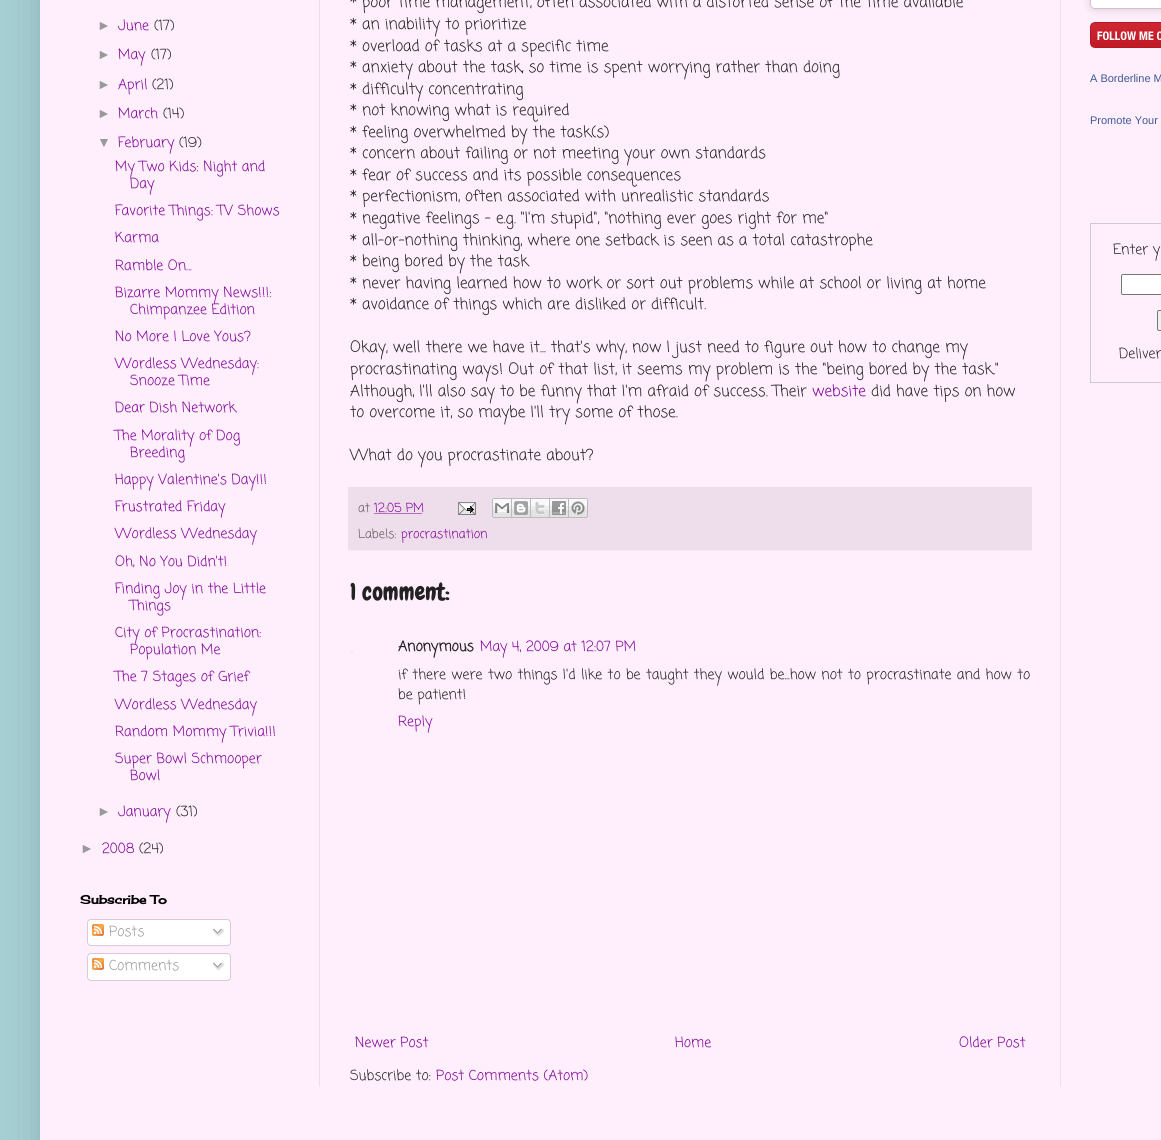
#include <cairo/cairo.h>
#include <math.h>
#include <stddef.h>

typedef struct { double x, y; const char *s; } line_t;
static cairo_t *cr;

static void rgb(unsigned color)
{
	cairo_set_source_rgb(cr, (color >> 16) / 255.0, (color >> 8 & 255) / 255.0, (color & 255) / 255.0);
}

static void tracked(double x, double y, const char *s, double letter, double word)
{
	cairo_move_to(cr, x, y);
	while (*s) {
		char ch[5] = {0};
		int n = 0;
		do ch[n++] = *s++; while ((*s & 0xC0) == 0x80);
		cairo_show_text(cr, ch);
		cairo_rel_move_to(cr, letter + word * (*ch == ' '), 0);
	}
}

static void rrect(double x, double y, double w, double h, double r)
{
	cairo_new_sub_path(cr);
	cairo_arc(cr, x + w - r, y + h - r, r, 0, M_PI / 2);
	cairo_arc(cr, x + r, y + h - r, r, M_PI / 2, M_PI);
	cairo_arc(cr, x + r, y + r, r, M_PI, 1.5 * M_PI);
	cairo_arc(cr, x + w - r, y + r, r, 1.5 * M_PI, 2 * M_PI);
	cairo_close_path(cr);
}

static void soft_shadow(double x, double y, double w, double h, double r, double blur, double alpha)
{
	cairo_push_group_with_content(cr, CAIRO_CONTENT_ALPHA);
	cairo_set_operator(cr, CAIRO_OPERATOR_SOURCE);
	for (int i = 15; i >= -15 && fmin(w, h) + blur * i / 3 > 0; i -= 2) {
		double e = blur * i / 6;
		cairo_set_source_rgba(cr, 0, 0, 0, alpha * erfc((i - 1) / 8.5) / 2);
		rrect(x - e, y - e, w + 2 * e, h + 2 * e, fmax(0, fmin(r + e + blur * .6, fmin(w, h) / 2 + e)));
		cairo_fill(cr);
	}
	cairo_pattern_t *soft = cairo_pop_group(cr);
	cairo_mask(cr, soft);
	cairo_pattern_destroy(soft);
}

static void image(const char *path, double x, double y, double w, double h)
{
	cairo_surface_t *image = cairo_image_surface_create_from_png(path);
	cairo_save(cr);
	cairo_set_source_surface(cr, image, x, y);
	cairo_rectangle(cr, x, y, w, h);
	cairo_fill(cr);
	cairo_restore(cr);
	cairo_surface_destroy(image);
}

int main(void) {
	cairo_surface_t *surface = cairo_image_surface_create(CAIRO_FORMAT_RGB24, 1161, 1140);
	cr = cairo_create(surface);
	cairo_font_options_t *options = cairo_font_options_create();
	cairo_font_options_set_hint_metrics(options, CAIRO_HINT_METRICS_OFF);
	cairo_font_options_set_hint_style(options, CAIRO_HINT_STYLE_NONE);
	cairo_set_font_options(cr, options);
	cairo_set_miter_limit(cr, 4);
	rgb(0xa6cfd4);
	cairo_paint(cr);
	rgb(0x000000);
	soft_shadow(40, -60, 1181, 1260, 0, 20, 0.15);
	rgb(0xffeefc);
	cairo_rectangle(cr, 40, 0, 1121, 1140);
	cairo_fill(cr);
	image("img/1.png", 87, 919, 144, 24);
	image("img/2.png", 92, 924, 12, 12);
	image("img/3.png", 212, 928, 13, 9);
	image("img/4.png", 87, 943, 144, 3);
	image("img/5.png", 87, 953, 144, 25);
	image("img/2.png", 92, 958, 12, 12);
	image("img/3.png", 212, 962, 13, 9);
	image("img/4.png", 87, 978, 144, 3);
	rgb(0xeeddea);
	cairo_rectangle(cr, 348, 487, 684, 63);
	cairo_fill(cr);
	rgb(0xeeeeee);
	cairo_rectangle(cr, 348, 550, 684, 1);
	cairo_fill(cr);
	cairo_new_path(cr);
	cairo_move_to(cr, 374.5, 513.5);
	cairo_line_to(cr, 422.5, 513.5);
	rgb(0x7f0099);
	cairo_set_line_width(cr, 1);
	cairo_set_dash(cr, (double[]){1, 1}, 2, 0);
	cairo_stroke(cr);
	image("img/6.png", 458, 502, 18, 13);
	image("img/7.png", 492, 498, 20, 20);
	image("img/8.png", 512, 498, 19, 20);
	image("img/9.png", 531, 498, 19, 20);
	image("img/10.png", 550, 498, 19, 20);
	image("img/11.png", 569, 498, 19, 20);
	cairo_rectangle(cr, 350.5, 651.5, 2, 2);
	rgb(0xeeeeee);
	cairo_set_dash(cr, NULL, 0, 0);
	cairo_stroke(cr);
	rgb(0x000000);
	soft_shadow(1091, -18, 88, 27, 3, 5, 0.15);
	soft_shadow(1091, -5, 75, 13, 3, 0.5, 0.5);
	rgb(0xffffff);
	rrect(1091, -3, 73, 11, 3);
	cairo_fill(cr);
	image("img/12.png", 1090, 22, 71, 26);
	cairo_rectangle(cr, 1090.5, 223.5, 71, 159);
	rgb(0xcccccc);
	cairo_stroke(cr);
	rgb(0xffffff);
	rrect(1121.5, 274.5, 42, 20, 1.5);
	cairo_fill_preserve(cr);
	rgb(0x767676);
	cairo_stroke(cr);
	rgb(0xefefef);
	rrect(1157.5, 310.5, 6, 20, 1.5);
	cairo_fill_preserve(cr);
	rgb(0x767676);
	cairo_stroke(cr);
	rgb(0xedddee);
	cairo_rectangle(cr, 319, 0, 1, 1087);
	cairo_fill(cr);
	cairo_rectangle(cr, 1060, 0, 1, 1087);
	cairo_fill(cr);
	cairo_select_font_face(cr, "Liberation Sans", CAIRO_FONT_SLANT_NORMAL, CAIRO_FONT_WEIGHT_NORMAL);
	cairo_set_font_size(cr, 14);
	rgb(0x999999);
	cairo_move_to(cr, 97, 30);
	cairo_show_text(cr, "►");
	cairo_select_font_face(cr, "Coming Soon", CAIRO_FONT_SLANT_NORMAL, CAIRO_FONT_WEIGHT_NORMAL);
	rgb(0x7f0099);
	cairo_move_to(cr, 118, 30);
	cairo_show_text(cr, "June");
	rgb(0x222222);
	cairo_move_to(cr, 154, 30);
	cairo_show_text(cr, "(17)");
	cairo_select_font_face(cr, "Liberation Sans", CAIRO_FONT_SLANT_NORMAL, CAIRO_FONT_WEIGHT_NORMAL);
	rgb(0x999999);
	cairo_move_to(cr, 97, 59);
	cairo_show_text(cr, "►");
	cairo_select_font_face(cr, "Coming Soon", CAIRO_FONT_SLANT_NORMAL, CAIRO_FONT_WEIGHT_NORMAL);
	rgb(0x7f0099);
	cairo_move_to(cr, 118, 59);
	cairo_show_text(cr, "May");
	rgb(0x222222);
	cairo_move_to(cr, 151, 59);
	cairo_show_text(cr, "(17)");
	cairo_select_font_face(cr, "Liberation Sans", CAIRO_FONT_SLANT_NORMAL, CAIRO_FONT_WEIGHT_NORMAL);
	rgb(0x999999);
	cairo_move_to(cr, 97, 89);
	cairo_show_text(cr, "►");
	cairo_select_font_face(cr, "Coming Soon", CAIRO_FONT_SLANT_NORMAL, CAIRO_FONT_WEIGHT_NORMAL);
	rgb(0x7f0099);
	cairo_move_to(cr, 118, 89);
	cairo_show_text(cr, "April");
	rgb(0x222222);
	cairo_move_to(cr, 152, 89);
	cairo_show_text(cr, "(21)");
	cairo_select_font_face(cr, "Liberation Sans", CAIRO_FONT_SLANT_NORMAL, CAIRO_FONT_WEIGHT_NORMAL);
	rgb(0x999999);
	cairo_move_to(cr, 97, 118);
	cairo_show_text(cr, "►");
	cairo_select_font_face(cr, "Coming Soon", CAIRO_FONT_SLANT_NORMAL, CAIRO_FONT_WEIGHT_NORMAL);
	rgb(0x7f0099);
	cairo_move_to(cr, 118, 118);
	cairo_show_text(cr, "March");
	rgb(0x222222);
	cairo_move_to(cr, 163, 118);
	cairo_show_text(cr, "(14)");
	cairo_select_font_face(cr, "Liberation Sans", CAIRO_FONT_SLANT_NORMAL, CAIRO_FONT_WEIGHT_NORMAL);
	rgb(0x999999);
	cairo_move_to(cr, 97, 147);
	cairo_show_text(cr, "▼");
	cairo_select_font_face(cr, "Coming Soon", CAIRO_FONT_SLANT_NORMAL, CAIRO_FONT_WEIGHT_NORMAL);
	rgb(0x7f0099);
	cairo_move_to(cr, 118, 147);
	cairo_show_text(cr, "February");
	rgb(0x222222);
	cairo_move_to(cr, 179, 147);
	cairo_show_text(cr, "(19)");
	rgb(0x7f0099);
	{
		static const line_t items[] = {
			{115, 171, "My Two Kids: Night and"},
			{130, 188, "Day"},
			{115, 215, "Favorite Things: TV Shows"},
			{115, 242, "Karma"},
			{115, 270, "Ramble On..."},
			{115, 297, "Bizarre Mommy News!!!:"},
			{130, 314, "Chimpanzee Edition"},
			{115, 341, "No More I Love Yous?"},
			{115, 368, "Wordless Wednesday:"},
			{130, 385, "Snooze Time"},
			{115, 412, "Dear Dish Network"},
			{115, 440, "The Morality of Dog"},
			{130, 457, "Breeding"},
			{115, 484, "Happy Valentine's Day!!!"},
			{115, 511, "Frustrated Friday"},
			{115, 538, "Wordless Wednesday"},
			{115, 566, "Oh, No You Didn't!"},
			{115, 593, "Finding Joy in the Little"},
			{130, 610, "Things"},
			{115, 637, "City of Procrastination:"},
			{130, 654, "Population Me"},
			{115, 681, "The 7 Stages of Grief"},
			{115, 709, "Wordless Wednesday"},
			{115, 736, "Random Mommy Trivia!!!"},
			{115, 763, "Super Bowl Schmooper"},
			{130, 780, "Bowl"},
		};
		for (size_t i = 0; i < sizeof items / sizeof *items; i++) {
			cairo_move_to(cr, items[i].x, items[i].y);
			cairo_show_text(cr, items[i].s);
		}
	}
	cairo_select_font_face(cr, "Liberation Sans", CAIRO_FONT_SLANT_NORMAL, CAIRO_FONT_WEIGHT_NORMAL);
	rgb(0x999999);
	cairo_move_to(cr, 97, 816);
	cairo_show_text(cr, "►");
	cairo_select_font_face(cr, "Coming Soon", CAIRO_FONT_SLANT_NORMAL, CAIRO_FONT_WEIGHT_NORMAL);
	rgb(0x7f0099);
	cairo_move_to(cr, 118, 816);
	cairo_show_text(cr, "January");
	rgb(0x222222);
	cairo_move_to(cr, 176, 816);
	cairo_show_text(cr, "(31)");
	cairo_select_font_face(cr, "Liberation Sans", CAIRO_FONT_SLANT_NORMAL, CAIRO_FONT_WEIGHT_NORMAL);
	rgb(0x999999);
	cairo_move_to(cr, 80, 853);
	cairo_show_text(cr, "►");
	cairo_select_font_face(cr, "Coming Soon", CAIRO_FONT_SLANT_NORMAL, CAIRO_FONT_WEIGHT_NORMAL);
	rgb(0x7f0099);
	cairo_move_to(cr, 102, 853);
	cairo_show_text(cr, "2008");
	rgb(0x222222);
	cairo_move_to(cr, 139, 853);
	cairo_show_text(cr, "(24)");
	cairo_select_font_face(cr, "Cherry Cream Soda", CAIRO_FONT_SLANT_NORMAL, CAIRO_FONT_WEIGHT_BOLD);
	cairo_set_font_size(cr, 12);
	rgb(0x000000);
	cairo_move_to(cr, 80, 904);
	cairo_show_text(cr, "Subscribe To");
	cairo_select_font_face(cr, "Coming Soon", CAIRO_FONT_SLANT_NORMAL, CAIRO_FONT_WEIGHT_NORMAL);
	cairo_set_font_size(cr, 14);
	rgb(0x999999);
	cairo_move_to(cr, 109, 936);
	cairo_show_text(cr, "Posts");
	cairo_move_to(cr, 109, 970);
	cairo_show_text(cr, "Comments");
	cairo_set_font_size(cr, 15.4);
	rgb(0x222222);
	{
		static const line_t items[] = {
			{350, 7, "* poor time management, often associated with a distorted sense of the time available"},
			{350, 29, "* an inability to prioritize"},
			{350, 51, "* overload of tasks at a specific time"},
			{350, 72, "* anxiety about the task, so time is spent worrying rather than doing"},
			{350, 94, "* difficulty concentrating"},
			{350, 115, "* not knowing what is required"},
			{350, 137, "* feeling overwhelmed by the task(s)"},
			{350, 158, "* concern about failing or not meeting your own standards"},
			{350, 180, "* fear of success and its possible consequences"},
			{350, 201, "* perfectionism, often associated with unrealistic standards"},
			{350, 223, "* negative feelings - e.g. \"I'm stupid\", \"nothing ever goes right for me\""},
			{350, 245, "* all-or-nothing thinking, where one setback is seen as a total catastrophe"},
			{350, 266, "* being bored by the task"},
			{350, 288, "* never having learned how to work or sort out problems while at school or living at home"},
			{350, 309, "* avoidance of things which are disliked or difficult."},
			{350, 352, "Okay, well there we have it... that's why, now I just need to figure out how to change my"},
			{350, 374, "procrastinating ways! Out of that list, it seems my problem is the \"being bored by the task.\""},
			{350, 396, "Although, I'll also say to be funny that I'm afraid of success. Their"},
		};
		for (size_t i = 0; i < sizeof items / sizeof *items; i++) {
			cairo_move_to(cr, items[i].x, items[i].y);
			cairo_show_text(cr, items[i].s);
		}
	}
	rgb(0x7f0099);
	cairo_move_to(cr, 812, 396);
	cairo_show_text(cr, "website");
	rgb(0x222222);
	{
		static const line_t items[] = {
			{871, 396, "did have tips on how"},
			{350, 417, "to overcome it, so maybe I'll try some of those."},
			{350, 460, "What do you procrastinate about?"},
		};
		for (size_t i = 0; i < sizeof items / sizeof *items; i++) {
			cairo_move_to(cr, items[i].x, items[i].y);
			cairo_show_text(cr, items[i].s);
		}
	}
	cairo_set_font_size(cr, 12.5);
	rgb(0x66555e);
	cairo_move_to(cr, 358, 512);
	cairo_show_text(cr, "at");
	rgb(0x7f0099);
	cairo_move_to(cr, 374, 512);
	cairo_show_text(cr, "12:05 PM");
	rgb(0x66555e);
	cairo_move_to(cr, 358, 538);
	cairo_show_text(cr, "Labels:");
	rgb(0x7f0099);
	cairo_move_to(cr, 401, 538);
	cairo_show_text(cr, "procrastination");
	cairo_select_font_face(cr, "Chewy", CAIRO_FONT_SLANT_NORMAL, CAIRO_FONT_WEIGHT_NORMAL);
	cairo_set_font_size(cr, 24);
	rgb(0x222222);
	cairo_move_to(cr, 350, 600);
	cairo_show_text(cr, "1 comment:");
	cairo_select_font_face(cr, "Coming Soon", CAIRO_FONT_SLANT_NORMAL, CAIRO_FONT_WEIGHT_BOLD);
	cairo_set_font_size(cr, 14);
	cairo_move_to(cr, 398, 651);
	cairo_show_text(cr, "Anonymous");
	cairo_select_font_face(cr, "Coming Soon", CAIRO_FONT_SLANT_NORMAL, CAIRO_FONT_WEIGHT_NORMAL);
	rgb(0x7f0099);
	cairo_move_to(cr, 480, 651);
	cairo_show_text(cr, "May 4, 2009 at 12:07 PM");
	rgb(0x222222);
	tracked(398, 679, "if there were two things I'd like to be taught they would be...how not to procrastinate and how to", 0, 0.75);
	cairo_move_to(cr, 398, 699);
	cairo_show_text(cr, "be patient!");
	rgb(0x7f0099);
	{
		static const line_t items[] = {
			{398, 726, "Reply"},
			{355, 1047, "Newer Post"},
			{675, 1047, "Home"},
			{959, 1047, "Older Post"},
		};
		for (size_t i = 0; i < sizeof items / sizeof *items; i++) {
			cairo_move_to(cr, items[i].x, items[i].y);
			cairo_show_text(cr, items[i].s);
		}
	}
	rgb(0x222222);
	cairo_move_to(cr, 350, 1080);
	cairo_show_text(cr, "Subscribe to:");
	rgb(0x7f0099);
	cairo_move_to(cr, 436, 1080);
	cairo_show_text(cr, "Post Comments (Atom)");
	cairo_select_font_face(cr, "Liberation Sans", CAIRO_FONT_SLANT_NORMAL, CAIRO_FONT_WEIGHT_NORMAL);
	cairo_set_font_size(cr, 11);
	rgb(0x3b5998);
	cairo_move_to(cr, 1090, 82);
	cairo_show_text(cr, "A Borderline M");
	cairo_move_to(cr, 1090, 124);
	cairo_show_text(cr, "Promote Your");
	cairo_select_font_face(cr, "Coming Soon", CAIRO_FONT_SLANT_NORMAL, CAIRO_FONT_WEIGHT_NORMAL);
	cairo_set_font_size(cr, 14);
	rgb(0x222222);
	cairo_move_to(cr, 1113, 254);
	cairo_show_text(cr, "Enter y");
	cairo_move_to(cr, 1119, 358);
	cairo_show_text(cr, "Deliver");
	cairo_surface_write_to_png(surface, "page.png");
	cairo_font_options_destroy(options);
	cairo_destroy(cr);
	cairo_surface_destroy(surface);
	return 0;
}
